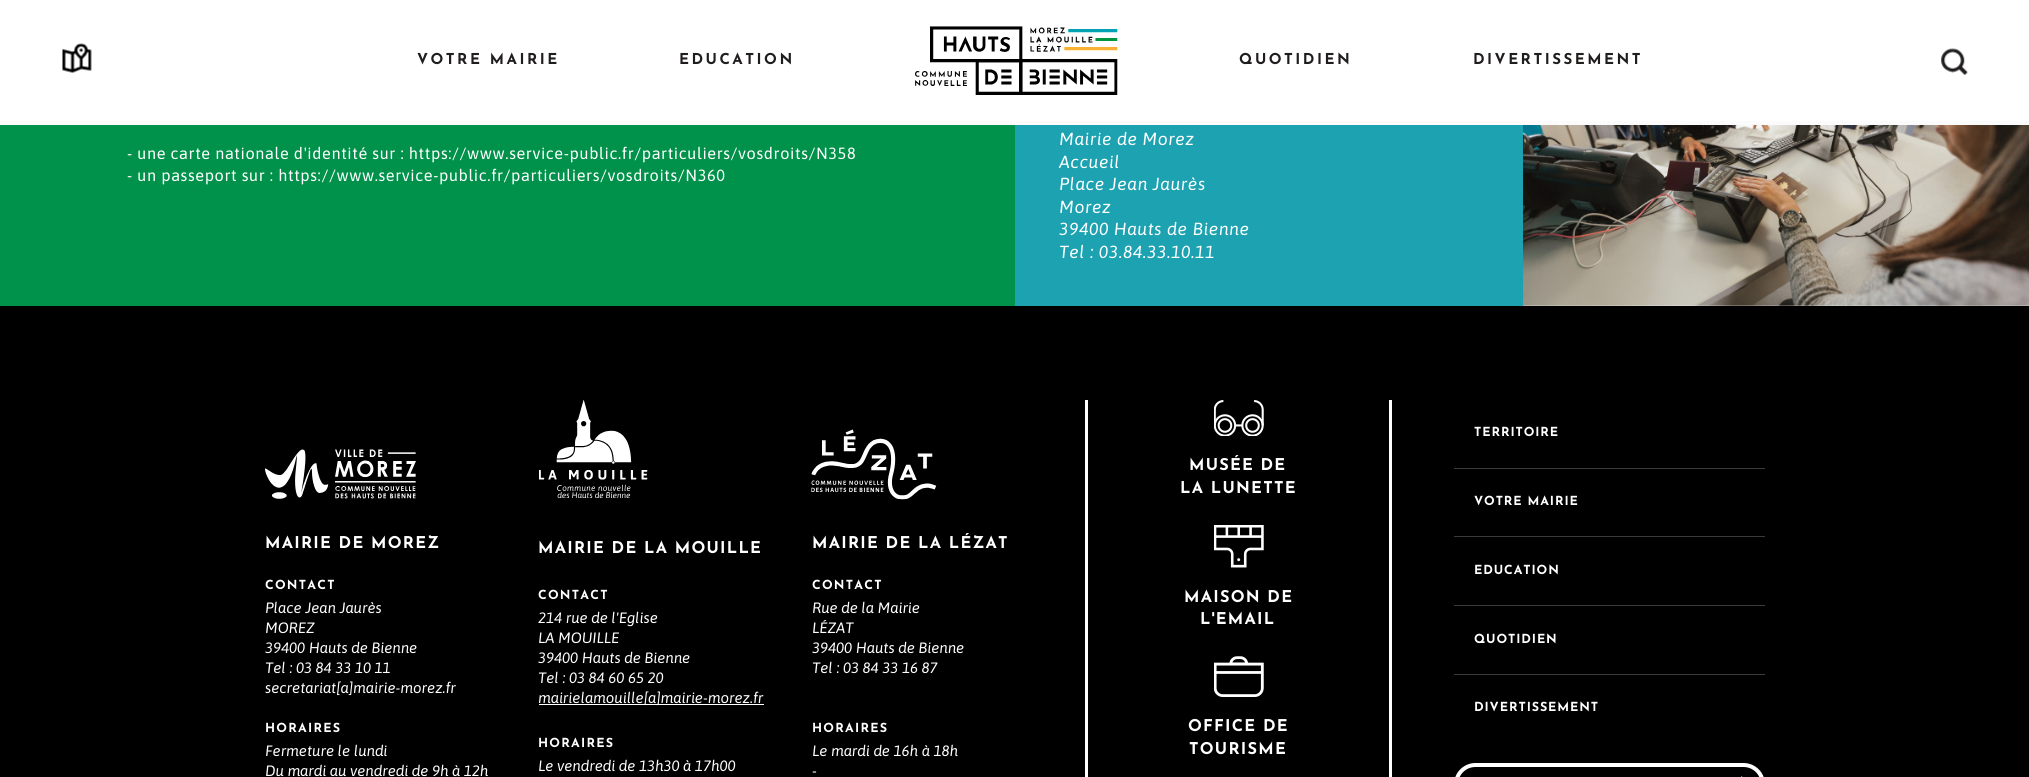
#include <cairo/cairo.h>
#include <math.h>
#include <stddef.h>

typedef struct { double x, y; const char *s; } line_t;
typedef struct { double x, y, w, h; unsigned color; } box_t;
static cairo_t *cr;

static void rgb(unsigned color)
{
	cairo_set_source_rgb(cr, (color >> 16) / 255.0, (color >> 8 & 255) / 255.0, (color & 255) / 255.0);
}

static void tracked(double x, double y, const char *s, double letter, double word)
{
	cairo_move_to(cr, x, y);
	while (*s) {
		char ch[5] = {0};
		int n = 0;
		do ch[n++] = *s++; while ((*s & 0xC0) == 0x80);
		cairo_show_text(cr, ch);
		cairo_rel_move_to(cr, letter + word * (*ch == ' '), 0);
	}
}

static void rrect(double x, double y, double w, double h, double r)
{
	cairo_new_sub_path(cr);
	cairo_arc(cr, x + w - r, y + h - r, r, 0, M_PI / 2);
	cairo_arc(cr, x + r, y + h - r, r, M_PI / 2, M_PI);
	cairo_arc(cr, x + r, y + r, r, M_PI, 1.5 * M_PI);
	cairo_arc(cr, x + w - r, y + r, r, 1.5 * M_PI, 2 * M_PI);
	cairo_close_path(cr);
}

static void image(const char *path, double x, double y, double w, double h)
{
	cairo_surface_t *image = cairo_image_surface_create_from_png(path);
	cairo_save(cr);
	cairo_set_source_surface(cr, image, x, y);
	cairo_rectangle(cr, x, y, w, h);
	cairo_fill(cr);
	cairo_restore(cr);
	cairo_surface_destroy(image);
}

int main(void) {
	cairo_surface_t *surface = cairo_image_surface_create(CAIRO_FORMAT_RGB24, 2029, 777);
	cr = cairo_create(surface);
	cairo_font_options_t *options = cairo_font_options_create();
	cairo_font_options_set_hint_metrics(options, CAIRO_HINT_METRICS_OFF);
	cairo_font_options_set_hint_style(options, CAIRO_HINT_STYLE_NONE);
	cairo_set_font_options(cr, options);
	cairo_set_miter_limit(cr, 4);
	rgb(0xffffff);
	cairo_paint(cr);
	rgb(0xfbfbfb);
	cairo_rectangle(cr, 0, 121, 2029, 4);
	cairo_fill(cr);
	image("img/1.png", 62, 43, 30, 30);
	image("img/2.png", 915, 26, 203, 69);
	image("img/3.png", 1941, 48, 27, 27);
	rgb(0x00924a);
	cairo_rectangle(cr, 0, 125, 1015, 181);
	cairo_fill(cr);
	rgb(0x1ca2b1);
	cairo_rectangle(cr, 1015, 125, 508, 181);
	cairo_fill(cr);
	image("img/4.png", 1523, 125, 506, 181);
	rgb(0x000000);
	cairo_rectangle(cr, 0, 306, 2029, 471);
	cairo_fill(cr);
	image("img/5.png", 265, 449, 151, 50);
	image("img/6.png", 539, 400, 109, 98);
	rgb(0xffffff);
	cairo_rectangle(cr, 539, 704, 225, 1);
	cairo_fill(cr);
	image("img/7.png", 811, 429, 126, 71);
	cairo_rectangle(cr, 1389, 400, 3, 377);
	cairo_fill(cr);
	cairo_rectangle(cr, 1085, 400, 3, 377);
	cairo_fill(cr);
	image("img/8.png", 1214, 400, 50, 36);
	image("img/9.png", 1214, 525, 50, 43);
	image("img/10.png", 1214, 656, 50, 41);
	{
		static const box_t items[] = {
			{1454, 468, 311, 1, 0x3b3b3b},
			{1454, 536, 311, 1, 0x3b3b3b},
			{1454, 605, 311, 1, 0x3b3b3b},
			{1454, 674, 311, 1, 0x3b3b3b},
		};
		for (size_t i = 0; i < sizeof items / sizeof *items; i++) {
			rgb(items[i].color);
			cairo_rectangle(cr, items[i].x, items[i].y, items[i].w, items[i].h);
			cairo_fill(cr);
		}
	}
	rrect(1456, 765, 307, 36, 19.5);
	rgb(0xffffff);
	cairo_set_line_width(cr, 4);
	cairo_stroke(cr);
	image("img/11.png", 1741, 776, 2, 1);
	cairo_select_font_face(cr, "Josefin Sans", CAIRO_FONT_SLANT_NORMAL, CAIRO_FONT_WEIGHT_BOLD);
	cairo_set_font_size(cr, 15);
	rgb(0x201d1d);
	{
		static const line_t items[] = {
			{417, 64, "VOTRE MAIRIE"},
			{679, 64, "EDUCATION"},
			{1239, 64, "QUOTIDIEN"},
			{1473, 64, "DIVERTISSEMENT"},
		};
		for (size_t i = 0; i < sizeof items / sizeof *items; i++) {
			tracked(items[i].x, items[i].y, items[i].s, 2.5, 0);
		}
	}
	cairo_select_font_face(cr, "Asap", CAIRO_FONT_SLANT_NORMAL, CAIRO_FONT_WEIGHT_NORMAL);
	cairo_set_font_size(cr, 16.25);
	rgb(0xffffff);
	tracked(127, 159, "- une carte nationale d'identité sur : https://www.service-public.fr/particuliers/vosdroits/N358", 0.62, 0);
	tracked(127, 181, "- un passeport sur : https://www.service-public.fr/particuliers/vosdroits/N360", 0.62, 0);
	cairo_select_font_face(cr, "Asap", CAIRO_FONT_SLANT_ITALIC, CAIRO_FONT_WEIGHT_NORMAL);
	cairo_set_font_size(cr, 17.5);
	{
		static const line_t items[] = {
			{1059, 145, "Mairie de Morez"},
			{1059, 168, "Accueil"},
			{1059, 190, "Place Jean Jaurès"},
			{1059, 213, "Morez"},
			{1059, 235, "39400 Hauts de Bienne"},
			{1059, 258, "Tel : 03.84.33.10.11"},
		};
		for (size_t i = 0; i < sizeof items / sizeof *items; i++) {
			tracked(items[i].x, items[i].y, items[i].s, 0.62, 0);
		}
	}
	cairo_select_font_face(cr, "Josefin Sans", CAIRO_FONT_SLANT_NORMAL, CAIRO_FONT_WEIGHT_BOLD);
	cairo_set_font_size(cr, 16.25);
	tracked(265, 548, "MAIRIE DE MOREZ", 1.25, 0);
	cairo_set_font_size(cr, 12.5);
	tracked(265, 589, "CONTACT", 1.25, 0);
	cairo_select_font_face(cr, "Asap", CAIRO_FONT_SLANT_ITALIC, CAIRO_FONT_WEIGHT_NORMAL);
	cairo_set_font_size(cr, 15);
	{
		static const line_t items[] = {
			{265, 613, "Place Jean Jaurès"},
			{265, 633, "MOREZ"},
			{265, 653, "39400 Hauts de Bienne"},
			{265, 673, "Tel : 03 84 33 10 11"},
			{265, 693, "secretariat[a]mairie-morez.fr"},
		};
		for (size_t i = 0; i < sizeof items / sizeof *items; i++) {
			cairo_move_to(cr, items[i].x, items[i].y);
			cairo_show_text(cr, items[i].s);
		}
	}
	cairo_select_font_face(cr, "Josefin Sans", CAIRO_FONT_SLANT_NORMAL, CAIRO_FONT_WEIGHT_BOLD);
	cairo_set_font_size(cr, 12.5);
	tracked(265, 732, "HORAIRES", 1.25, 0);
	cairo_select_font_face(cr, "Asap", CAIRO_FONT_SLANT_ITALIC, CAIRO_FONT_WEIGHT_NORMAL);
	cairo_set_font_size(cr, 15);
	cairo_move_to(cr, 265, 756);
	cairo_show_text(cr, "Fermeture le lundi");
	cairo_move_to(cr, 265, 776);
	cairo_show_text(cr, "Du mardi au vendredi de 9h à 12h");
	cairo_select_font_face(cr, "Josefin Sans", CAIRO_FONT_SLANT_NORMAL, CAIRO_FONT_WEIGHT_BOLD);
	cairo_set_font_size(cr, 16.25);
	tracked(538, 553, "MAIRIE DE LA MOUILLE", 1.25, 0);
	cairo_set_font_size(cr, 12.5);
	tracked(538, 599, "CONTACT", 1.25, 0);
	cairo_select_font_face(cr, "Asap", CAIRO_FONT_SLANT_ITALIC, CAIRO_FONT_WEIGHT_NORMAL);
	cairo_set_font_size(cr, 15);
	{
		static const line_t items[] = {
			{538, 623, "214 rue de l'Eglise"},
			{538, 643, "LA MOUILLE"},
			{538, 663, "39400 Hauts de Bienne"},
			{538, 683, "Tel : 03 84 60 65 20"},
			{538, 703, "mairielamouille[a]mairie-morez.fr"},
		};
		for (size_t i = 0; i < sizeof items / sizeof *items; i++) {
			cairo_move_to(cr, items[i].x, items[i].y);
			cairo_show_text(cr, items[i].s);
		}
	}
	cairo_select_font_face(cr, "Josefin Sans", CAIRO_FONT_SLANT_NORMAL, CAIRO_FONT_WEIGHT_BOLD);
	cairo_set_font_size(cr, 12.5);
	tracked(538, 747, "HORAIRES", 1.25, 0);
	cairo_select_font_face(cr, "Asap", CAIRO_FONT_SLANT_ITALIC, CAIRO_FONT_WEIGHT_NORMAL);
	cairo_set_font_size(cr, 15);
	cairo_move_to(cr, 538, 771);
	cairo_show_text(cr, "Le vendredi de 13h30 à 17h00");
	cairo_select_font_face(cr, "Josefin Sans", CAIRO_FONT_SLANT_NORMAL, CAIRO_FONT_WEIGHT_BOLD);
	cairo_set_font_size(cr, 16.25);
	tracked(812, 548, "MAIRIE DE LA LÉZAT", 1.25, 0);
	cairo_set_font_size(cr, 12.5);
	tracked(812, 589, "CONTACT", 1.25, 0);
	cairo_select_font_face(cr, "Asap", CAIRO_FONT_SLANT_ITALIC, CAIRO_FONT_WEIGHT_NORMAL);
	cairo_set_font_size(cr, 15);
	{
		static const line_t items[] = {
			{812, 613, "Rue de la Mairie"},
			{812, 633, "LÉZAT"},
			{812, 653, "39400 Hauts de Bienne"},
			{812, 673, "Tel : 03 84 33 16 87"},
		};
		for (size_t i = 0; i < sizeof items / sizeof *items; i++) {
			cairo_move_to(cr, items[i].x, items[i].y);
			cairo_show_text(cr, items[i].s);
		}
	}
	cairo_select_font_face(cr, "Josefin Sans", CAIRO_FONT_SLANT_NORMAL, CAIRO_FONT_WEIGHT_BOLD);
	cairo_set_font_size(cr, 12.5);
	tracked(812, 732, "HORAIRES", 1.25, 0);
	cairo_select_font_face(cr, "Asap", CAIRO_FONT_SLANT_ITALIC, CAIRO_FONT_WEIGHT_NORMAL);
	cairo_set_font_size(cr, 15);
	cairo_move_to(cr, 812, 756);
	cairo_show_text(cr, "Le mardi de 16h à 18h");
	cairo_move_to(cr, 812, 776);
	cairo_show_text(cr, "-");
	cairo_select_font_face(cr, "Josefin Sans", CAIRO_FONT_SLANT_NORMAL, CAIRO_FONT_WEIGHT_BOLD);
	cairo_set_font_size(cr, 16.25);
	{
		static const line_t items[] = {
			{1189, 470, "MUSÉE DE"},
			{1180, 493, "LA LUNETTE"},
			{1184, 602, "MAISON DE"},
			{1200, 624, "L'EMAIL"},
			{1188, 731, "OFFICE DE"},
			{1189, 754, "TOURISME"},
		};
		for (size_t i = 0; i < sizeof items / sizeof *items; i++) {
			tracked(items[i].x, items[i].y, items[i].s, 1.25, 0);
		}
	}
	cairo_set_font_size(cr, 12.5);
	{
		static const line_t items[] = {
			{1474, 436, "TERRITOIRE"},
			{1474, 505, "VOTRE MAIRIE"},
			{1474, 574, "EDUCATION"},
			{1474, 643, "QUOTIDIEN"},
			{1474, 711, "DIVERTISSEMENT"},
		};
		for (size_t i = 0; i < sizeof items / sizeof *items; i++) {
			tracked(items[i].x, items[i].y, items[i].s, 0.9, 0);
		}
	}
	cairo_surface_write_to_png(surface, "page.png");
	cairo_font_options_destroy(options);
	cairo_destroy(cr);
	cairo_surface_destroy(surface);
	return 0;
}
